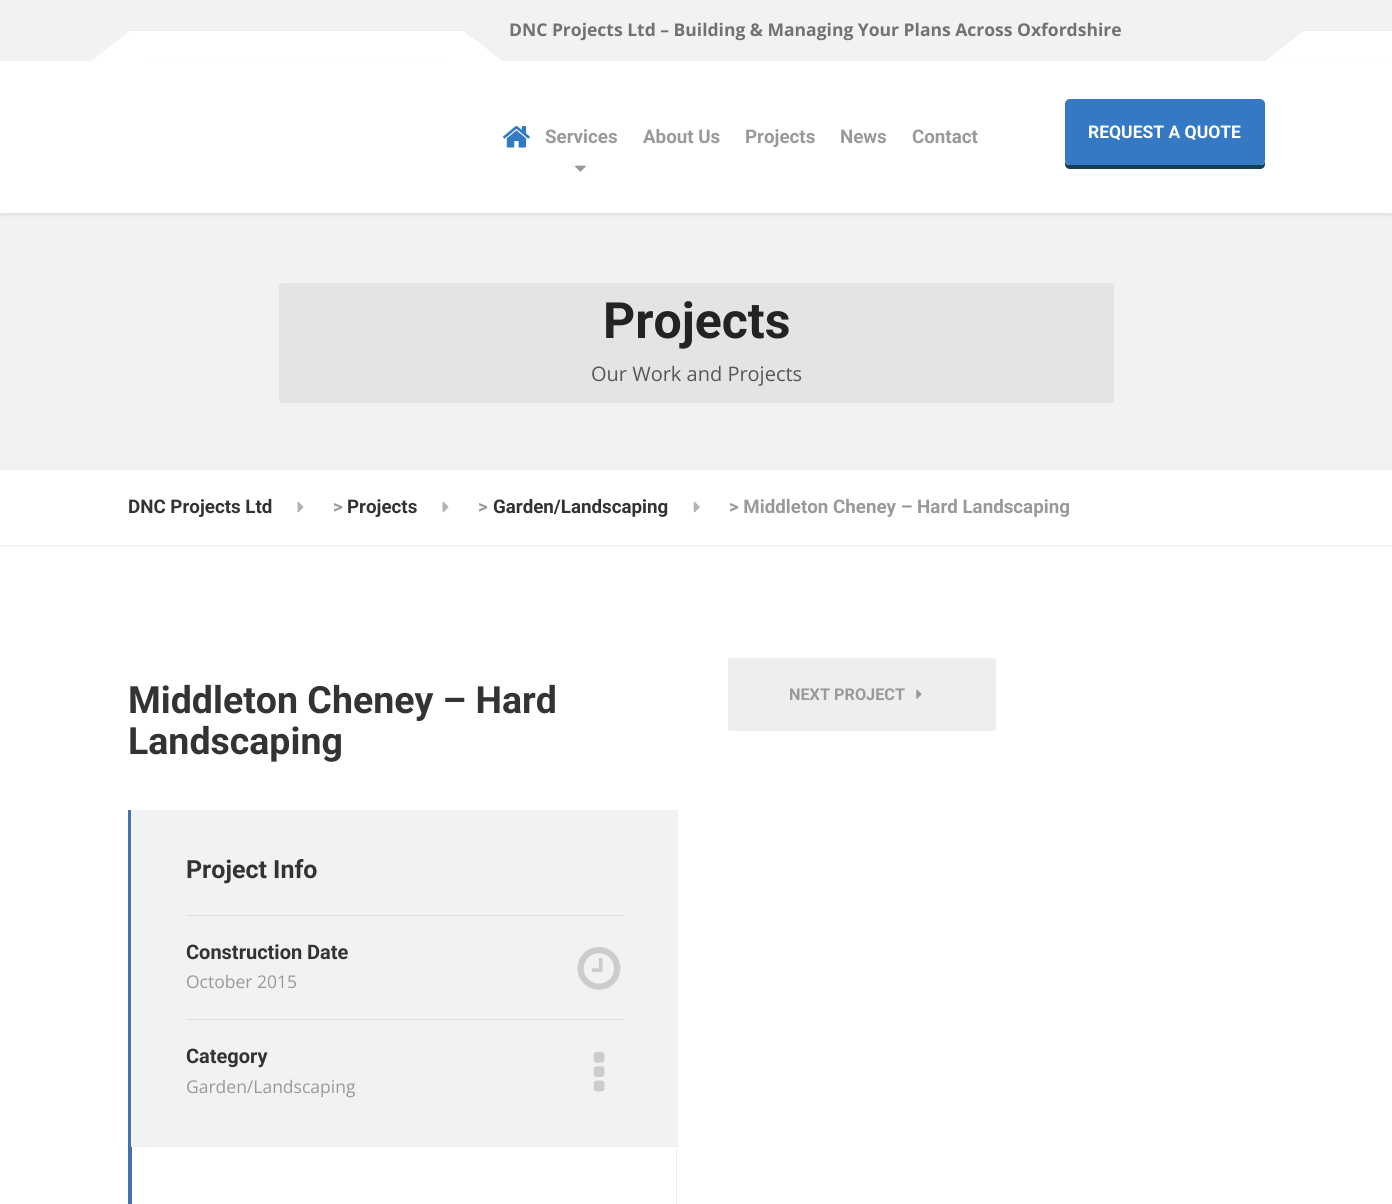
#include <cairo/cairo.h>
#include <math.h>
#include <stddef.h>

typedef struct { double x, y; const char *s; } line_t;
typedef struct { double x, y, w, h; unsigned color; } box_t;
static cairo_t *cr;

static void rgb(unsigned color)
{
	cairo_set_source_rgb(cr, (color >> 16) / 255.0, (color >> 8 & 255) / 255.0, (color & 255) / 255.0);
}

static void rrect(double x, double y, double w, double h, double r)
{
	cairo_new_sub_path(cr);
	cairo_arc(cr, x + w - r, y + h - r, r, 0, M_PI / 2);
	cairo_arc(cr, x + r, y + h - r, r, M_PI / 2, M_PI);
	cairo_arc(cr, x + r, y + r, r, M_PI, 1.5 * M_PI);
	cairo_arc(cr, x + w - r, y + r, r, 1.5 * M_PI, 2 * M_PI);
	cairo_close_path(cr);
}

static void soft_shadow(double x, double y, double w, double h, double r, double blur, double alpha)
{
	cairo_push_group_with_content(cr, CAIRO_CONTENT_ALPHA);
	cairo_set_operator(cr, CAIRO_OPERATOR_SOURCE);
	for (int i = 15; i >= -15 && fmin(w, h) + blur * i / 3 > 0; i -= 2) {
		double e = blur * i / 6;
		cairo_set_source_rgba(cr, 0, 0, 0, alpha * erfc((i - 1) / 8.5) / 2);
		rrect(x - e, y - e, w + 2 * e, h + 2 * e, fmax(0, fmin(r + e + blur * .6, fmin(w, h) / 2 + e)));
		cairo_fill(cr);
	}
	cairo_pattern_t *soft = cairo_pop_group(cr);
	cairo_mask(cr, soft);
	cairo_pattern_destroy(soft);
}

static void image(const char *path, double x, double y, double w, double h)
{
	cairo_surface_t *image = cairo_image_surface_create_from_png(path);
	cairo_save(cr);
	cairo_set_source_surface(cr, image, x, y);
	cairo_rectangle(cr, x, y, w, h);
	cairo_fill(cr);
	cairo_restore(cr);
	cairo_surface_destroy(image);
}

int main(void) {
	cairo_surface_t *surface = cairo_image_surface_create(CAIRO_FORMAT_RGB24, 1392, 1204);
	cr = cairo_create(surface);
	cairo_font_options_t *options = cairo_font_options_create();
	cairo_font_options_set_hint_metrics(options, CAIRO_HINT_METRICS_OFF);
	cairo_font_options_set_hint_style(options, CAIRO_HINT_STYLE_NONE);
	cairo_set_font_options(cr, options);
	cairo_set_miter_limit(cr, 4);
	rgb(0xffffff);
	cairo_paint(cr);
	{
		static const box_t items[] = {
			{0, 0, 1392, 60, 0xf2f2f2},
			{0, 60, 1265, 1, 0xefefef},
			{128, 31, 337, 30, 0xffffff},
			{128, 30, 337, 1, 0xefefef},
			{1301, 31, 91, 29, 0xffffff},
		};
		for (size_t i = 0; i < sizeof items / sizeof *items; i++) {
			rgb(items[i].color);
			cairo_rectangle(cr, items[i].x, items[i].y, items[i].w, items[i].h);
			cairo_fill(cr);
		}
	}
	cairo_new_path(cr);
	cairo_move_to(cr, 1302, 31);
	cairo_line_to(cr, 1331, 68);
	cairo_line_to(cr, 1293, 98);
	cairo_line_to(cr, 1264, 60);
	cairo_close_path(cr);
	cairo_fill(cr);
	rgb(0xefefef);
	cairo_new_path(cr);
	cairo_move_to(cr, 1301.5, 31);
	cairo_line_to(cr, 1302.5, 32);
	cairo_line_to(cr, 1265, 61);
	cairo_line_to(cr, 1264, 60);
	cairo_close_path(cr);
	cairo_fill(cr);
	cairo_rectangle(cr, 1301, 30, 91, 1);
	cairo_fill(cr);
	rgb(0xf2f2f2);
	cairo_rectangle(cr, 0, 213, 1392, 256);
	cairo_fill(cr);
	rgb(0xdedede);
	soft_shadow(0, 64, 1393, 151, 0, 2, 1);
	rgb(0xffffff);
	cairo_rectangle(cr, 0, 61, 1392, 152);
	cairo_fill(cr);
	cairo_new_path(cr);
	cairo_move_to(cr, 128, 31);
	cairo_line_to(cr, 157, 68);
	cairo_line_to(cr, 120, 98);
	cairo_line_to(cr, 90, 60);
	cairo_close_path(cr);
	cairo_fill(cr);
	rgb(0xefefef);
	cairo_new_path(cr);
	cairo_move_to(cr, 128, 31);
	cairo_line_to(cr, 128.5, 32);
	cairo_line_to(cr, 91, 61);
	cairo_line_to(cr, 90.5, 60);
	cairo_close_path(cr);
	cairo_fill(cr);
	rgb(0xffffff);
	cairo_new_path(cr);
	cairo_move_to(cr, 437, 68);
	cairo_line_to(cr, 466, 31);
	cairo_line_to(cr, 503, 60);
	cairo_line_to(cr, 474, 98);
	cairo_close_path(cr);
	cairo_fill(cr);
	rgb(0xefefef);
	cairo_new_path(cr);
	cairo_move_to(cr, 465, 32);
	cairo_line_to(cr, 466, 31);
	cairo_line_to(cr, 503.5, 60);
	cairo_line_to(cr, 502.5, 61);
	cairo_close_path(cr);
	cairo_fill(cr);
	image("img/1.png", 503, 126, 27, 22);
	image("img/2.png", 575, 165, 11, 7);
	rgb(0x143f56);
	cairo_new_path(cr);
	cairo_move_to(cr, 1065, 160);
	cairo_line_to(cr, 1065, 164);
	cairo_curve_to(cr, 1065, 167, 1067, 169, 1070, 169);
	cairo_line_to(cr, 1260, 169);
	cairo_curve_to(cr, 1263, 169, 1265, 167, 1265, 164);
	cairo_line_to(cr, 1265, 160);
	cairo_curve_to(cr, 1265, 163, 1263, 165, 1260, 165);
	cairo_line_to(cr, 1070, 165);
	cairo_curve_to(cr, 1067, 165, 1065, 163, 1065, 160);
	cairo_close_path(cr);
	cairo_fill(cr);
	rgb(0x3578c4);
	rrect(1065, 99, 200, 66, 5);
	cairo_fill(cr);
	rgb(0xefefef);
	cairo_rectangle(cr, 0, 469, 1392, 1);
	cairo_fill(cr);
	rgb(0xe4e4e4);
	rrect(279, 283, 835, 120, 2.5);
	cairo_fill(cr);
	cairo_save(cr);
	cairo_rectangle(cr, 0, 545, 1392, 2);
	cairo_clip(cr);
	rgb(0x000000);
	soft_shadow(0, 471, 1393, 75, 0, 1, 0.1);
	cairo_restore(cr);
	image("img/3.png", 297, 501, 7, 12);
	image("img/3.png", 442, 501, 7, 12);
	image("img/4.png", 693, 501, 7, 12);
	{
		static const box_t items[] = {
			{128, 810, 4, 394, 0x4273b0},
			{131, 810, 547, 336, 0xf2f2f2},
			{186, 915, 438, 1, 0xdddddd},
		};
		for (size_t i = 0; i < sizeof items / sizeof *items; i++) {
			rgb(items[i].color);
			cairo_rectangle(cr, items[i].x, items[i].y, items[i].w, items[i].h);
			cairo_fill(cr);
		}
	}
	image("img/5.png", 577, 947, 44, 43);
	cairo_rectangle(cr, 186, 1019, 438, 1);
	cairo_fill(cr);
	image("img/6.png", 593, 1052, 12, 40);
	rgb(0xeeeeee);
	cairo_rectangle(cr, 131, 1146, 547, 1);
	cairo_fill(cr);
	cairo_rectangle(cr, 676, 1146, 1, 58);
	cairo_fill(cr);
	rrect(728, 658, 268, 73, 2.5);
	cairo_fill(cr);
	image("img/7.png", 916, 689, 6, 10);
	cairo_select_font_face(cr, "Open Sans", CAIRO_FONT_SLANT_NORMAL, CAIRO_FONT_WEIGHT_BOLD);
	cairo_set_font_size(cr, 17.5);
	rgb(0x727272);
	cairo_move_to(cr, 509, 36);
	cairo_show_text(cr, "DNC Projects Ltd – Building & Managing Your Plans Across Oxfordshire");
	cairo_select_font_face(cr, "Roboto", CAIRO_FONT_SLANT_NORMAL, CAIRO_FONT_WEIGHT_BOLD);
	cairo_set_font_size(cr, 18.75);
	rgb(0x999999);
	{
		static const line_t items[] = {
			{545, 143, "Services"},
			{643, 143, "About Us"},
			{745, 143, "Projects"},
			{840, 143, "News"},
			{912, 143, "Contact"},
		};
		for (size_t i = 0; i < sizeof items / sizeof *items; i++) {
			cairo_move_to(cr, items[i].x, items[i].y);
			cairo_show_text(cr, items[i].s);
		}
	}
	cairo_set_font_size(cr, 17.5);
	rgb(0xffffff);
	cairo_move_to(cr, 1088, 138);
	cairo_show_text(cr, "REQUEST A QUOTE");
	cairo_set_font_size(cr, 50);
	rgb(0x232323);
	cairo_move_to(cr, 603, 338);
	cairo_show_text(cr, "Projects");
	cairo_select_font_face(cr, "Open Sans", CAIRO_FONT_SLANT_NORMAL, CAIRO_FONT_WEIGHT_NORMAL);
	cairo_set_font_size(cr, 20);
	rgb(0x575757);
	cairo_move_to(cr, 591, 381);
	cairo_show_text(cr, "Our Work and Projects");
	cairo_select_font_face(cr, "Roboto", CAIRO_FONT_SLANT_NORMAL, CAIRO_FONT_WEIGHT_BOLD);
	cairo_set_font_size(cr, 18.75);
	rgb(0x333333);
	cairo_move_to(cr, 128, 513);
	cairo_show_text(cr, "DNC Projects Ltd");
	rgb(0x999999);
	cairo_move_to(cr, 333, 513);
	cairo_show_text(cr, ">");
	rgb(0x333333);
	cairo_move_to(cr, 347, 513);
	cairo_show_text(cr, "Projects");
	rgb(0x999999);
	cairo_move_to(cr, 478, 513);
	cairo_show_text(cr, ">");
	rgb(0x333333);
	cairo_move_to(cr, 493, 513);
	cairo_show_text(cr, "Garden/Landscaping");
	rgb(0x999999);
	cairo_move_to(cr, 729, 513);
	cairo_show_text(cr, "> Middleton Cheney – Hard Landscaping");
	cairo_set_font_size(cr, 37.5);
	rgb(0x333333);
	cairo_move_to(cr, 128, 713);
	cairo_show_text(cr, "Middleton Cheney – Hard");
	cairo_move_to(cr, 128, 754);
	cairo_show_text(cr, "Landscaping");
	cairo_set_font_size(cr, 25);
	cairo_move_to(cr, 186, 878);
	cairo_show_text(cr, "Project Info");
	cairo_set_font_size(cr, 20);
	cairo_move_to(cr, 186, 959);
	cairo_show_text(cr, "Construction Date");
	cairo_select_font_face(cr, "Open Sans", CAIRO_FONT_SLANT_NORMAL, CAIRO_FONT_WEIGHT_NORMAL);
	cairo_set_font_size(cr, 17.5);
	rgb(0x999999);
	cairo_move_to(cr, 186, 988);
	cairo_show_text(cr, "October 2015");
	cairo_select_font_face(cr, "Roboto", CAIRO_FONT_SLANT_NORMAL, CAIRO_FONT_WEIGHT_BOLD);
	cairo_set_font_size(cr, 20);
	rgb(0x333333);
	cairo_move_to(cr, 186, 1063);
	cairo_show_text(cr, "Category");
	cairo_select_font_face(cr, "Open Sans", CAIRO_FONT_SLANT_NORMAL, CAIRO_FONT_WEIGHT_NORMAL);
	cairo_set_font_size(cr, 17.5);
	rgb(0x999999);
	cairo_move_to(cr, 186, 1093);
	cairo_show_text(cr, "Garden/Landscaping");
	cairo_select_font_face(cr, "Roboto", CAIRO_FONT_SLANT_NORMAL, CAIRO_FONT_WEIGHT_BOLD);
	cairo_set_font_size(cr, 16.25);
	cairo_move_to(cr, 789, 700);
	cairo_show_text(cr, "NEXT PROJECT");
	cairo_surface_write_to_png(surface, "page.png");
	cairo_font_options_destroy(options);
	cairo_destroy(cr);
	cairo_surface_destroy(surface);
	return 0;
}
